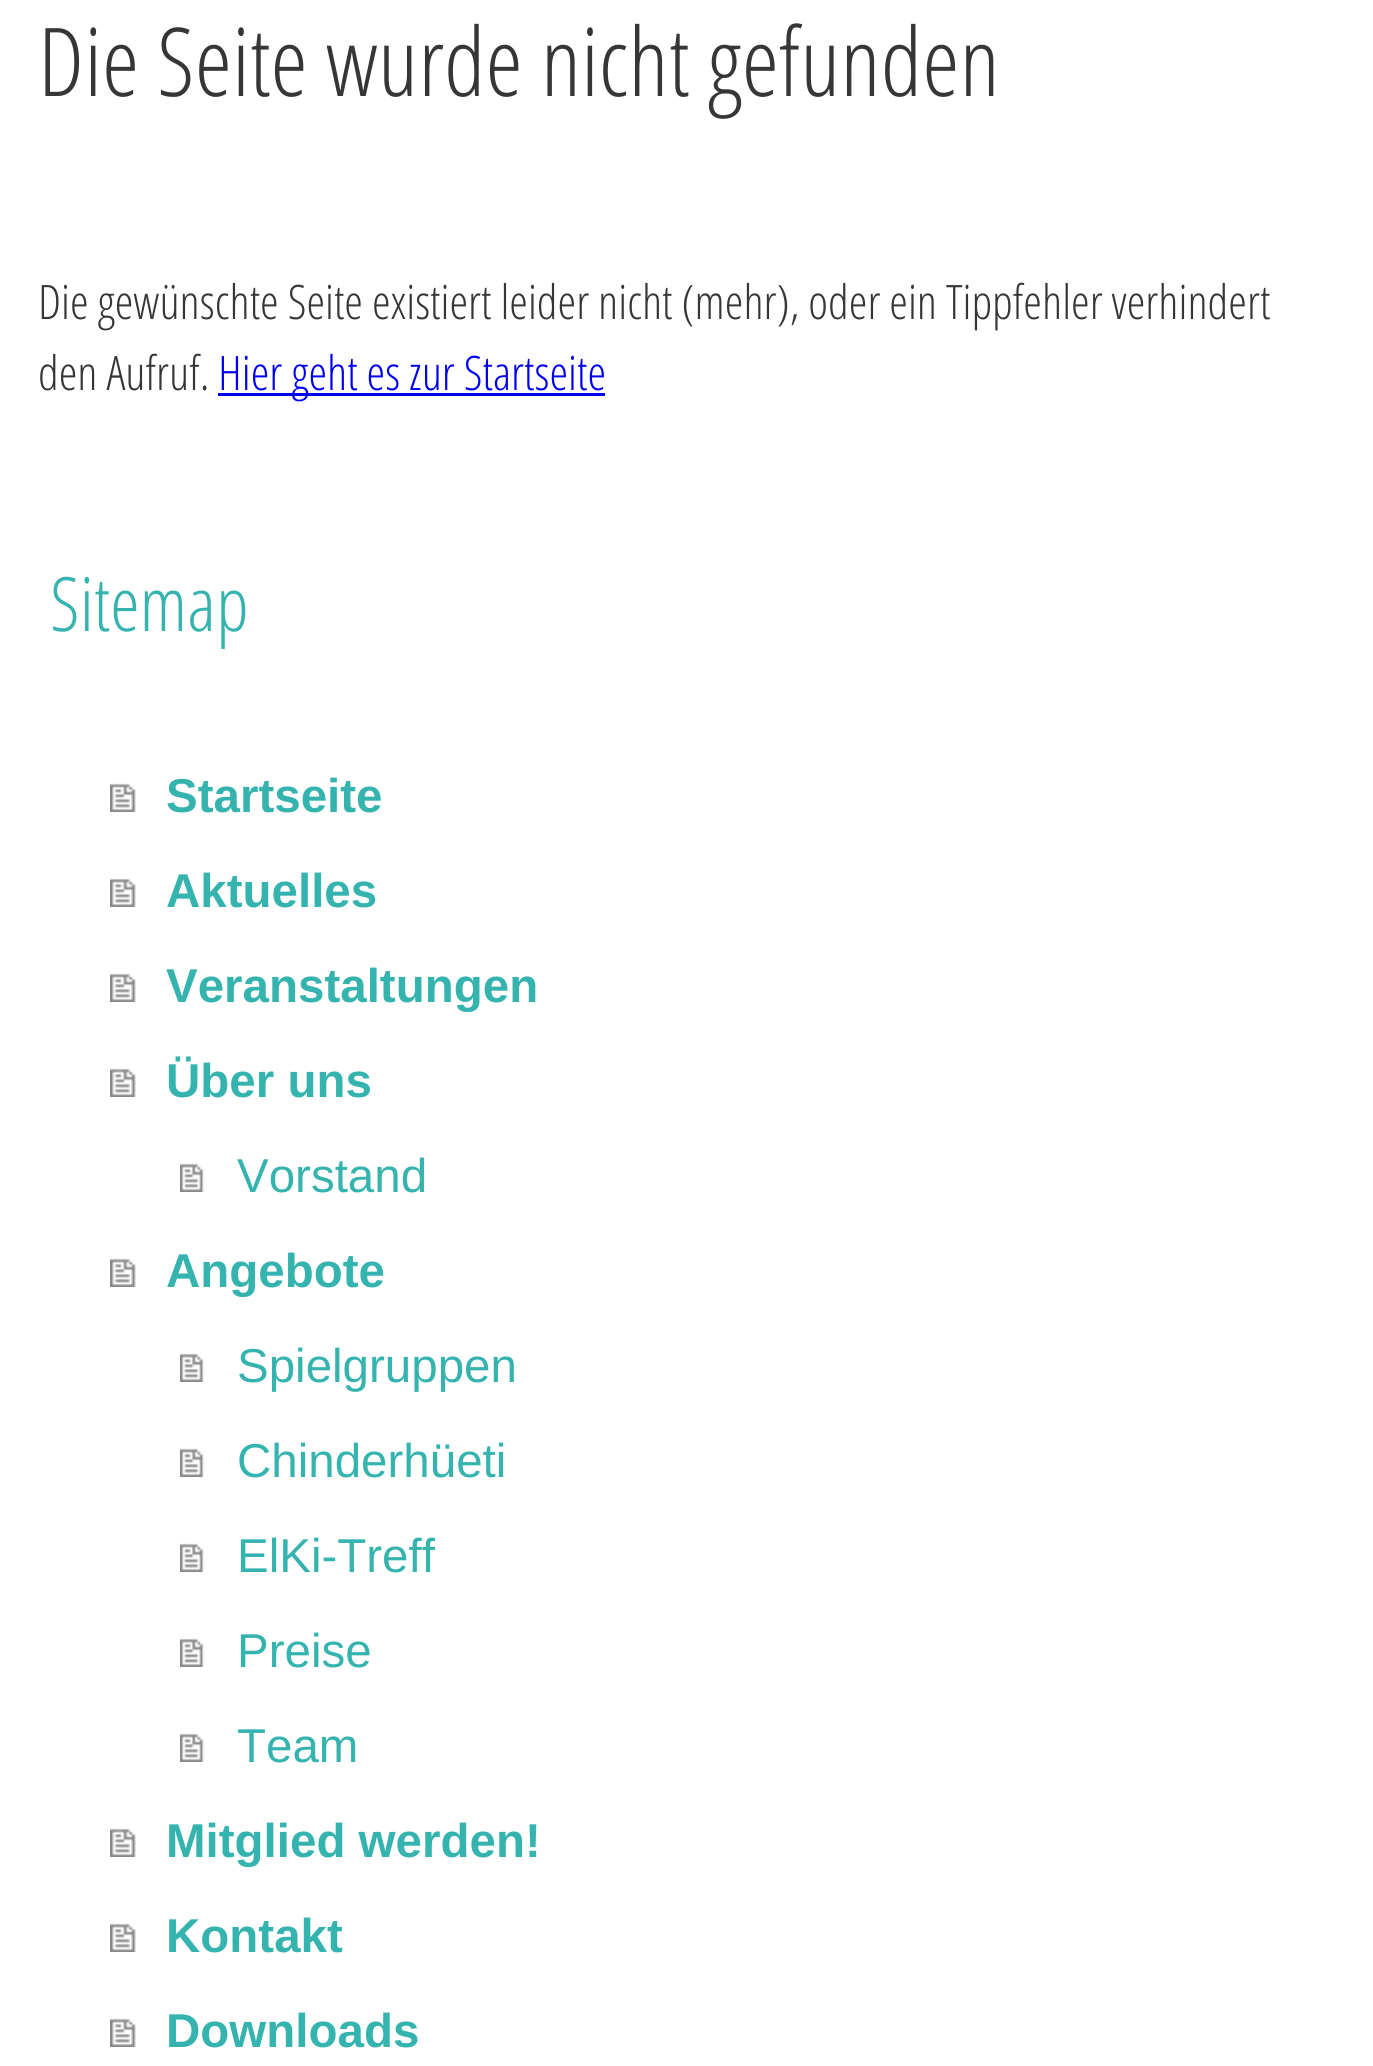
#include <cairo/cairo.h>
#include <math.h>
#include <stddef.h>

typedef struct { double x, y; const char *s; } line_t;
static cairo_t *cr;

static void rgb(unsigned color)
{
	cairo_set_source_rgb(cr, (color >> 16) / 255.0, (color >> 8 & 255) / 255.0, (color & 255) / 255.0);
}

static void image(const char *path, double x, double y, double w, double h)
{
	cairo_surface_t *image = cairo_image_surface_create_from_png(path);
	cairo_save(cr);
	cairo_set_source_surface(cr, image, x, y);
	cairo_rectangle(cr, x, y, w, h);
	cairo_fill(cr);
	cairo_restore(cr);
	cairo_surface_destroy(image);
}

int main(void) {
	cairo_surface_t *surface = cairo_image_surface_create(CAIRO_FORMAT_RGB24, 1373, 2066);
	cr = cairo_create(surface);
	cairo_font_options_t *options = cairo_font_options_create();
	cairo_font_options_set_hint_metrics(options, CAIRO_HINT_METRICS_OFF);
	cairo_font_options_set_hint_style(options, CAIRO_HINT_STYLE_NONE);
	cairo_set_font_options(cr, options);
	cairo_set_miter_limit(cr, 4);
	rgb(0xffffff);
	cairo_paint(cr);
	rgb(0x0000ee);
	cairo_rectangle(cr, 218, 393, 387, 3);
	cairo_fill(cr);
	image("img/1.png", 110, 783, 26, 29);
	image("img/1.png", 110, 878, 26, 29);
	image("img/1.png", 110, 973, 26, 29);
	image("img/1.png", 110, 1068, 26, 29);
	image("img/2.png", 180, 1163, 24, 29);
	image("img/1.png", 110, 1258, 26, 29);
	image("img/2.png", 180, 1353, 24, 29);
	image("img/2.png", 180, 1448, 24, 29);
	image("img/2.png", 180, 1543, 24, 29);
	image("img/2.png", 180, 1638, 24, 29);
	image("img/2.png", 180, 1733, 24, 29);
	image("img/1.png", 110, 1828, 26, 29);
	image("img/1.png", 110, 1923, 26, 29);
	image("img/1.png", 110, 2018, 26, 29);
	cairo_select_font_face(cr, "Open Sans Condensed Light", CAIRO_FONT_SLANT_NORMAL, CAIRO_FONT_WEIGHT_NORMAL);
	cairo_set_font_size(cr, 95);
	rgb(0x363636);
	cairo_move_to(cr, 38, 96);
	cairo_show_text(cr, "Die Seite wurde nicht gefunden");
	cairo_set_font_size(cr, 47.5);
	cairo_move_to(cr, 38, 319);
	cairo_show_text(cr, "Die gewünschte Seite existiert leider nicht (mehr), oder ein Tippfehler verhindert");
	cairo_move_to(cr, 38, 390);
	cairo_show_text(cr, "den Aufruf.");
	rgb(0x0000ee);
	cairo_move_to(cr, 218, 390);
	cairo_show_text(cr, "Hier geht es zur Startseite");
	cairo_set_font_size(cr, 75);
	rgb(0x35b3af);
	cairo_move_to(cr, 50, 631);
	cairo_show_text(cr, "Sitemap");
	cairo_select_font_face(cr, "Liberation Sans", CAIRO_FONT_SLANT_NORMAL, CAIRO_FONT_WEIGHT_BOLD);
	cairo_set_font_size(cr, 47.5);
	{
		static const line_t items[] = {
			{166, 812, "Startseite"},
			{166, 907, "Aktuelles"},
			{166, 1002, "Veranstaltungen"},
			{166, 1097, "Über uns"},
		};
		for (size_t i = 0; i < sizeof items / sizeof *items; i++) {
			cairo_move_to(cr, items[i].x, items[i].y);
			cairo_show_text(cr, items[i].s);
		}
	}
	cairo_select_font_face(cr, "Liberation Sans", CAIRO_FONT_SLANT_NORMAL, CAIRO_FONT_WEIGHT_NORMAL);
	cairo_move_to(cr, 237, 1192);
	cairo_show_text(cr, "Vorstand");
	cairo_select_font_face(cr, "Liberation Sans", CAIRO_FONT_SLANT_NORMAL, CAIRO_FONT_WEIGHT_BOLD);
	cairo_move_to(cr, 166, 1287);
	cairo_show_text(cr, "Angebote");
	cairo_select_font_face(cr, "Liberation Sans", CAIRO_FONT_SLANT_NORMAL, CAIRO_FONT_WEIGHT_NORMAL);
	{
		static const line_t items[] = {
			{237, 1382, "Spielgruppen"},
			{237, 1477, "Chinderhüeti"},
			{237, 1572, "ElKi-Treff"},
			{237, 1667, "Preise"},
			{237, 1762, "Team"},
		};
		for (size_t i = 0; i < sizeof items / sizeof *items; i++) {
			cairo_move_to(cr, items[i].x, items[i].y);
			cairo_show_text(cr, items[i].s);
		}
	}
	cairo_select_font_face(cr, "Liberation Sans", CAIRO_FONT_SLANT_NORMAL, CAIRO_FONT_WEIGHT_BOLD);
	{
		static const line_t items[] = {
			{166, 1857, "Mitglied werden!"},
			{166, 1952, "Kontakt"},
			{166, 2047, "Downloads"},
		};
		for (size_t i = 0; i < sizeof items / sizeof *items; i++) {
			cairo_move_to(cr, items[i].x, items[i].y);
			cairo_show_text(cr, items[i].s);
		}
	}
	cairo_surface_write_to_png(surface, "page.png");
	cairo_font_options_destroy(options);
	cairo_destroy(cr);
	cairo_surface_destroy(surface);
	return 0;
}
